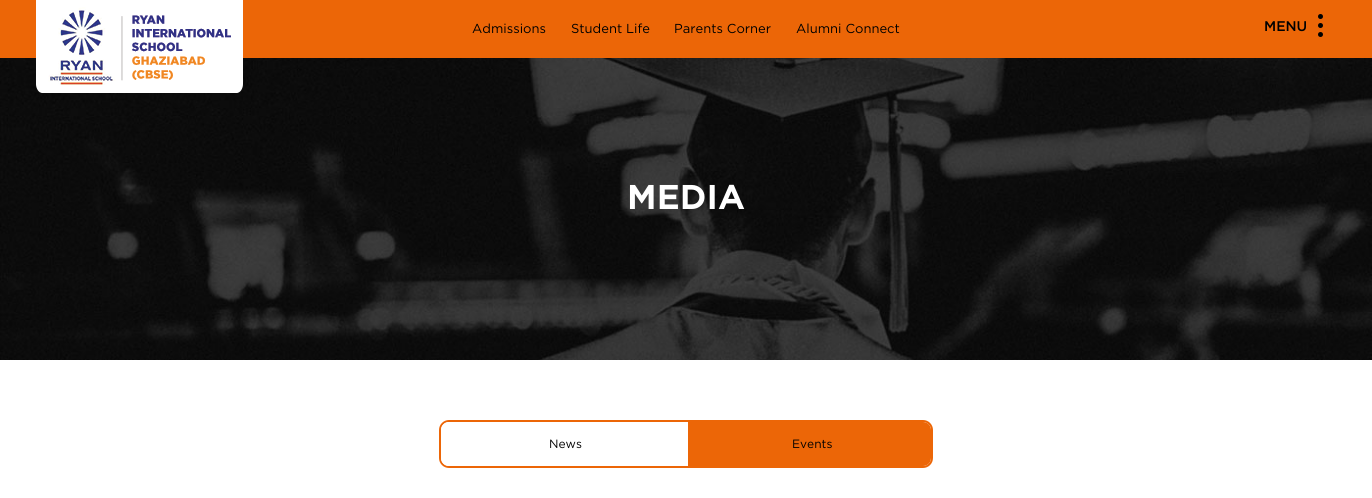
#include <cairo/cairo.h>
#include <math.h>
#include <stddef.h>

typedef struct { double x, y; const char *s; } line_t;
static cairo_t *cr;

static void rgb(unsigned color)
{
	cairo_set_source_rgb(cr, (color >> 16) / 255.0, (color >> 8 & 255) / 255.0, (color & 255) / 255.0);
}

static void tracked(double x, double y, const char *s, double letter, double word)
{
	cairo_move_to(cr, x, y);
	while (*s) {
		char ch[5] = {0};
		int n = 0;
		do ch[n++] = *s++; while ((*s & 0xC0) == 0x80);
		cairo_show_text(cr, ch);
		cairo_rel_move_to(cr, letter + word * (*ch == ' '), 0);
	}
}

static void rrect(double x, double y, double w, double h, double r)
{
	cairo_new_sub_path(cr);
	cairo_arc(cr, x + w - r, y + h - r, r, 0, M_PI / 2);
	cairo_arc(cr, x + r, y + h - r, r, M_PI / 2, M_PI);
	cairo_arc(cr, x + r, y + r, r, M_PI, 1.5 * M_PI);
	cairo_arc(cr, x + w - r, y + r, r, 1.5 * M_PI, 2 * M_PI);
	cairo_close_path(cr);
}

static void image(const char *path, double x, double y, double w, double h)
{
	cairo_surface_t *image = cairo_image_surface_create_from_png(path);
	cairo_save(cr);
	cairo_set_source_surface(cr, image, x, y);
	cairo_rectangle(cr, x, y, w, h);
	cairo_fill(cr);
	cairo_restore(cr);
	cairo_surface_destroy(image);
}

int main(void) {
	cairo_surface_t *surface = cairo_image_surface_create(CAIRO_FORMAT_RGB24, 1372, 498);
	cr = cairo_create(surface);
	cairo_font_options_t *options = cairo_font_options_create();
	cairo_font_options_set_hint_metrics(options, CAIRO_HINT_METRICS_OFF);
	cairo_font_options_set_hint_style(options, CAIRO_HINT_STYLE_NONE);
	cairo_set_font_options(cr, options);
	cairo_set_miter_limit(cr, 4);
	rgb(0xffffff);
	cairo_paint(cr);
	rgb(0xec6607);
	cairo_rectangle(cr, 0, 0, 1372, 58);
	cairo_fill(cr);
	image("img/2.png", 0, 58, 1372, 302);
	image("img/1.png", 36, 0, 207, 93);
	rgb(0x000000);
	cairo_arc(cr, 1320.5, 16.5, 2.5, 0, 2 * M_PI);
	cairo_fill(cr);
	cairo_arc(cr, 1320.5, 25.5, 2.5, 0, 2 * M_PI);
	cairo_fill(cr);
	cairo_arc(cr, 1320.5, 34.5, 2.5, 0, 2 * M_PI);
	cairo_fill(cr);
	rrect(440, 421, 492, 46, 9);
	rgb(0xec6607);
	cairo_stroke(cr);
	rgb(0xffffff);
	cairo_new_path(cr);
	cairo_move_to(cr, 449, 422);
	cairo_line_to(cr, 688, 422);
	cairo_line_to(cr, 688, 466);
	cairo_line_to(cr, 449, 466);
	cairo_curve_to(cr, 444.5, 466, 441, 462.5, 441, 458);
	cairo_line_to(cr, 441, 430);
	cairo_curve_to(cr, 441, 425.5, 444.5, 422, 449, 422);
	cairo_close_path(cr);
	cairo_fill(cr);
	rgb(0xec6607);
	cairo_new_path(cr);
	cairo_move_to(cr, 688, 422);
	cairo_line_to(cr, 923, 422);
	cairo_curve_to(cr, 927.5, 422, 931, 425.5, 931, 430);
	cairo_line_to(cr, 931, 458);
	cairo_curve_to(cr, 931, 462.5, 927.5, 466, 923, 466);
	cairo_line_to(cr, 688, 466);
	cairo_close_path(cr);
	cairo_fill(cr);
	cairo_select_font_face(cr, "Gotham", CAIRO_FONT_SLANT_NORMAL, CAIRO_FONT_WEIGHT_NORMAL);
	cairo_set_font_size(cr, 13);
	rgb(0x000000);
	{
		static const line_t items[] = {
			{472, 33, "Admissions"},
			{571, 33, "Student Life"},
			{674, 33, "Parents Corner"},
			{796, 33, "Alumni Connect"},
		};
		for (size_t i = 0; i < sizeof items / sizeof *items; i++) {
			cairo_move_to(cr, items[i].x, items[i].y);
			cairo_show_text(cr, items[i].s);
		}
	}
	cairo_select_font_face(cr, "Gotham Medium", CAIRO_FONT_SLANT_NORMAL, CAIRO_FONT_WEIGHT_NORMAL);
	cairo_set_font_size(cr, 14);
	cairo_move_to(cr, 1264, 31);
	cairo_show_text(cr, "MENU");
	cairo_select_font_face(cr, "Gotham", CAIRO_FONT_SLANT_NORMAL, CAIRO_FONT_WEIGHT_BOLD);
	cairo_set_font_size(cr, 33);
	rgb(0xffffff);
	tracked(627, 209, "MEDIA", 1, 0);
	cairo_select_font_face(cr, "Gotham", CAIRO_FONT_SLANT_NORMAL, CAIRO_FONT_WEIGHT_NORMAL);
	cairo_set_font_size(cr, 12);
	rgb(0x000000);
	cairo_move_to(cr, 549, 448);
	cairo_show_text(cr, "News");
	cairo_move_to(cr, 792, 448);
	cairo_show_text(cr, "Events");
	cairo_surface_write_to_png(surface, "page.png");
	cairo_font_options_destroy(options);
	cairo_destroy(cr);
	cairo_surface_destroy(surface);
	return 0;
}
